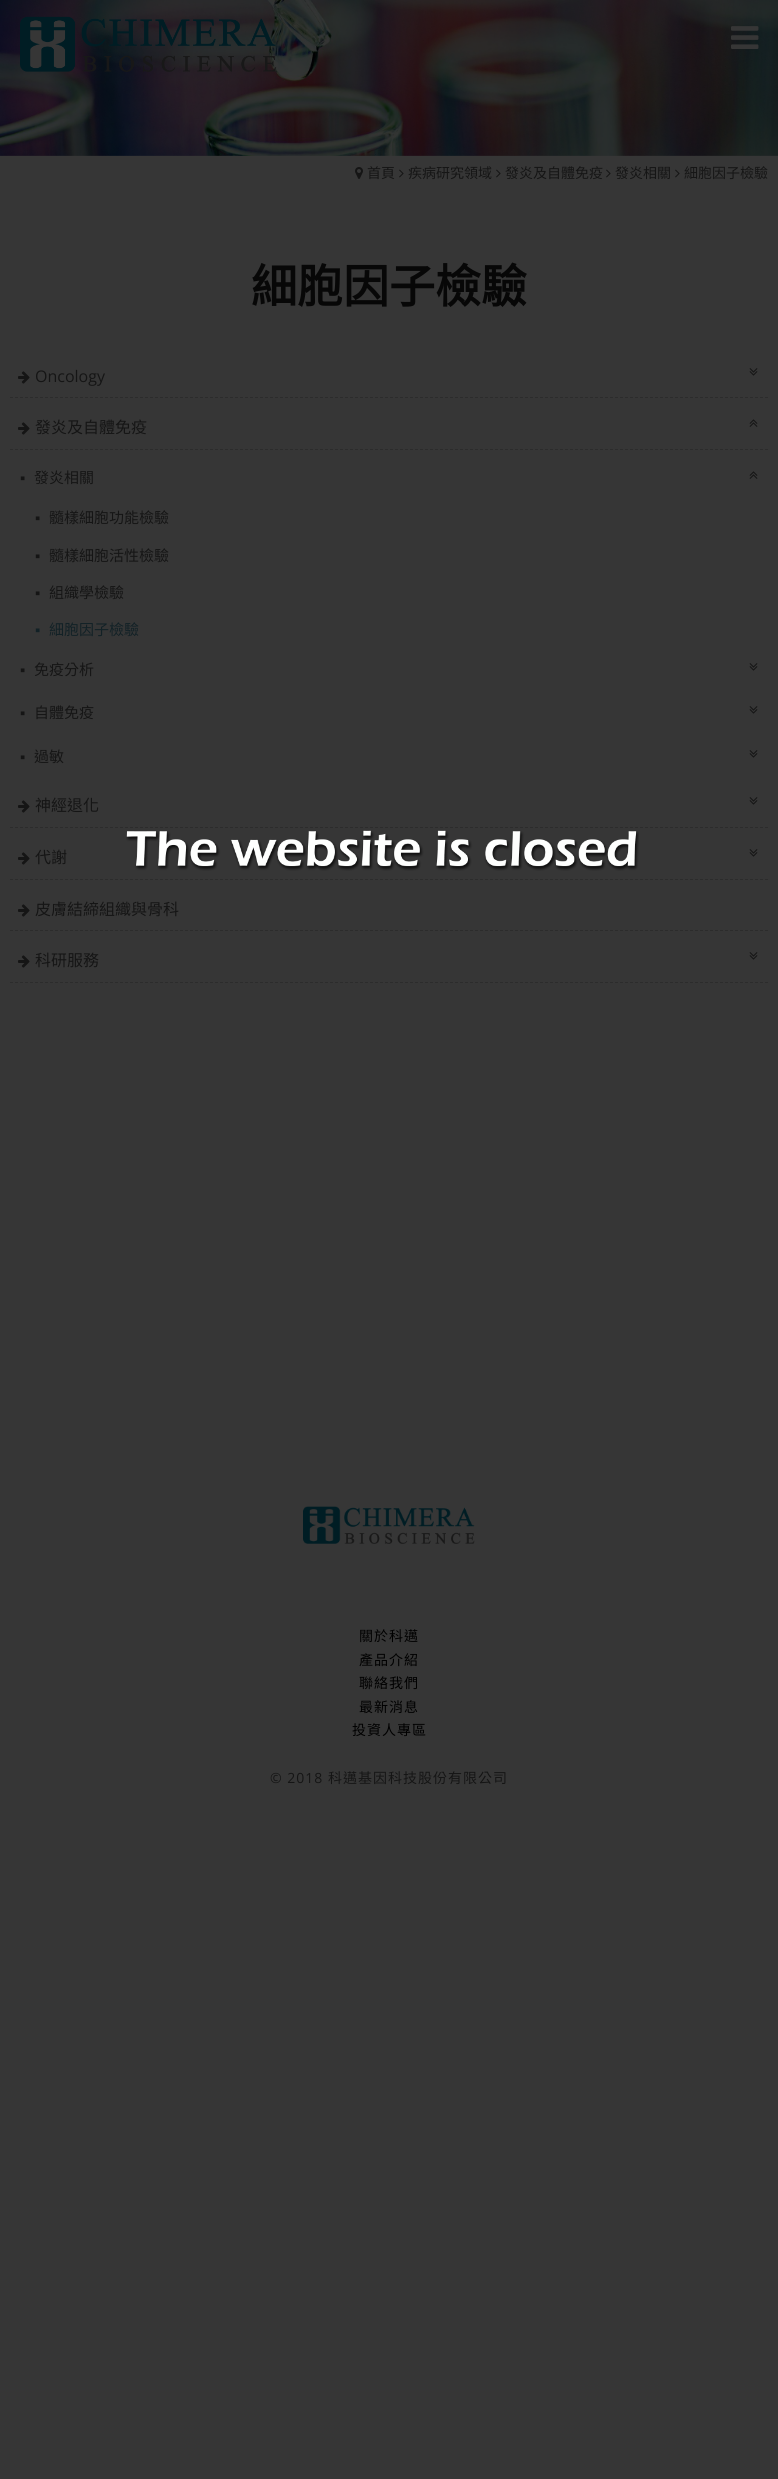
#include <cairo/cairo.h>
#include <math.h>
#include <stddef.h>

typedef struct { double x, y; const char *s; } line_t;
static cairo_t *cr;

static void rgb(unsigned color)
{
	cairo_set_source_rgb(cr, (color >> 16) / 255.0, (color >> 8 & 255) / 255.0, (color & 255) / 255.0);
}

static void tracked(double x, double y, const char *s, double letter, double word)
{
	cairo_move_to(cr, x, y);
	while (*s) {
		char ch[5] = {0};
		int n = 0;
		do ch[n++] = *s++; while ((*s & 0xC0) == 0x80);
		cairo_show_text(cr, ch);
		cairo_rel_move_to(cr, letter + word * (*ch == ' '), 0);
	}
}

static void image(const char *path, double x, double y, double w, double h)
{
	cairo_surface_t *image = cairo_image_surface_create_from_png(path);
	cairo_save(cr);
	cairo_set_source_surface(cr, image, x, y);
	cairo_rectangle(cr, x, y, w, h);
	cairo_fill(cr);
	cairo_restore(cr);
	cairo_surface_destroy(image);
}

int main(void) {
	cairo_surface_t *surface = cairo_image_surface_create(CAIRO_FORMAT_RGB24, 778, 2479);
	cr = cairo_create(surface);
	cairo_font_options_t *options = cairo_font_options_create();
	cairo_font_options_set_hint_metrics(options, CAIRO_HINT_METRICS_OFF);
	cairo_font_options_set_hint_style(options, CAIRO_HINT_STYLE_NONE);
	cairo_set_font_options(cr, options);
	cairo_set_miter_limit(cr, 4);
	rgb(0x363636);
	cairo_paint(cr);
	image("img/3.png", 0, 0, 778, 156);
	image("img/1.png", 20, 16, 257, 56);
	image("img/2.png", 731, 26, 28, 23);
	image("img/4.png", 355, 167, 8, 12);
	image("img/5.png", 399, 169, 5, 9);
	image("img/5.png", 496, 169, 5, 9);
	image("img/5.png", 606, 169, 5, 9);
	image("img/5.png", 675, 169, 5, 9);
	cairo_new_path(cr);
	cairo_move_to(cr, 10, 397.5);
	cairo_line_to(cr, 768, 397.5);
	rgb(0x2c2c2c);
	cairo_set_line_width(cr, 1);
	cairo_set_dash(cr, (double[]){3, 2}, 2, 0);
	cairo_stroke(cr);
	image("img/6.png", 18, 371, 12, 13);
	image("img/7.png", 749, 368, 9, 8);
	cairo_new_path(cr);
	cairo_move_to(cr, 10, 449.5);
	cairo_line_to(cr, 768, 449.5);
	cairo_stroke(cr);
	image("img/6.png", 18, 422, 12, 13);
	image("img/8.png", 749, 419, 9, 8);
	image("img/8.png", 749, 471, 9, 8);
	image("img/7.png", 749, 663, 9, 8);
	image("img/7.png", 749, 706, 9, 8);
	image("img/7.png", 749, 750, 9, 8);
	cairo_new_path(cr);
	cairo_move_to(cr, 10, 827.5);
	cairo_line_to(cr, 768, 827.5);
	cairo_stroke(cr);
	image("img/6.png", 18, 800, 12, 13);
	image("img/7.png", 749, 797, 9, 8);
	cairo_new_path(cr);
	cairo_move_to(cr, 10, 879.5);
	cairo_line_to(cr, 768, 879.5);
	cairo_stroke(cr);
	image("img/6.png", 18, 852, 12, 13);
	image("img/7.png", 749, 849, 9, 8);
	cairo_new_path(cr);
	cairo_move_to(cr, 10, 930.5);
	cairo_line_to(cr, 768, 930.5);
	cairo_stroke(cr);
	image("img/6.png", 18, 904, 12, 13);
	cairo_new_path(cr);
	cairo_move_to(cr, 10, 982.5);
	cairo_line_to(cr, 768, 982.5);
	cairo_stroke(cr);
	image("img/6.png", 18, 955, 12, 13);
	image("img/7.png", 749, 952, 9, 8);
	image("img/9.png", 303, 1506, 172, 38);
	image("img/10.png", 126, 830, 513, 41);
	cairo_select_font_face(cr, "Noto Sans CJK TC", CAIRO_FONT_SLANT_NORMAL, CAIRO_FONT_WEIGHT_NORMAL);
	cairo_set_font_size(cr, 14);
	rgb(0x151515);
	{
		static const line_t items[] = {
			{367, 178, "首頁"},
			{408, 178, "疾病研究領域"},
			{505, 178, "發炎及自體免疫"},
			{615, 178, "發炎相關"},
			{684, 178, "細胞因子檢驗"},
		};
		for (size_t i = 0; i < sizeof items / sizeof *items; i++) {
			cairo_move_to(cr, items[i].x, items[i].y);
			cairo_show_text(cr, items[i].s);
		}
	}
	cairo_select_font_face(cr, "Noto Sans CJK TC", CAIRO_FONT_SLANT_NORMAL, CAIRO_FONT_WEIGHT_BOLD);
	cairo_set_font_size(cr, 46);
	rgb(0x070707);
	cairo_move_to(cr, 251, 303);
	cairo_show_text(cr, "細胞因子檢驗");
	cairo_select_font_face(cr, "Open Sans", CAIRO_FONT_SLANT_NORMAL, CAIRO_FONT_WEIGHT_NORMAL);
	cairo_set_font_size(cr, 16);
	rgb(0x151515);
	cairo_move_to(cr, 35, 382);
	cairo_show_text(cr, "Oncology");
	cairo_select_font_face(cr, "Noto Sans CJK TC", CAIRO_FONT_SLANT_NORMAL, CAIRO_FONT_WEIGHT_NORMAL);
	cairo_move_to(cr, 35, 433);
	cairo_show_text(cr, "發炎及自體免疫");
	cairo_select_font_face(cr, "Liberation Sans", CAIRO_FONT_SLANT_NORMAL, CAIRO_FONT_WEIGHT_NORMAL);
	cairo_set_font_size(cr, 15);
	cairo_move_to(cr, 20, 483);
	cairo_show_text(cr, "▪");
	cairo_select_font_face(cr, "Noto Sans CJK TC", CAIRO_FONT_SLANT_NORMAL, CAIRO_FONT_WEIGHT_NORMAL);
	cairo_move_to(cr, 34, 483);
	cairo_show_text(cr, "發炎相關");
	cairo_select_font_face(cr, "Liberation Sans", CAIRO_FONT_SLANT_NORMAL, CAIRO_FONT_WEIGHT_NORMAL);
	cairo_move_to(cr, 35, 523);
	cairo_show_text(cr, "▪");
	cairo_select_font_face(cr, "Noto Sans CJK TC", CAIRO_FONT_SLANT_NORMAL, CAIRO_FONT_WEIGHT_NORMAL);
	cairo_move_to(cr, 49, 523);
	cairo_show_text(cr, "髓樣細胞功能檢驗");
	cairo_select_font_face(cr, "Liberation Sans", CAIRO_FONT_SLANT_NORMAL, CAIRO_FONT_WEIGHT_NORMAL);
	cairo_move_to(cr, 35, 561);
	cairo_show_text(cr, "▪");
	cairo_select_font_face(cr, "Noto Sans CJK TC", CAIRO_FONT_SLANT_NORMAL, CAIRO_FONT_WEIGHT_NORMAL);
	cairo_move_to(cr, 49, 561);
	cairo_show_text(cr, "髓樣細胞活性檢驗");
	cairo_select_font_face(cr, "Liberation Sans", CAIRO_FONT_SLANT_NORMAL, CAIRO_FONT_WEIGHT_NORMAL);
	cairo_move_to(cr, 35, 598);
	cairo_show_text(cr, "▪");
	cairo_select_font_face(cr, "Noto Sans CJK TC", CAIRO_FONT_SLANT_NORMAL, CAIRO_FONT_WEIGHT_NORMAL);
	cairo_move_to(cr, 49, 598);
	cairo_show_text(cr, "組織學檢驗");
	cairo_select_font_face(cr, "Liberation Sans", CAIRO_FONT_SLANT_NORMAL, CAIRO_FONT_WEIGHT_NORMAL);
	rgb(0x122126);
	cairo_move_to(cr, 35, 635);
	cairo_show_text(cr, "▪");
	cairo_select_font_face(cr, "Noto Sans CJK TC", CAIRO_FONT_SLANT_NORMAL, CAIRO_FONT_WEIGHT_NORMAL);
	cairo_move_to(cr, 49, 635);
	cairo_show_text(cr, "細胞因子檢驗");
	cairo_select_font_face(cr, "Liberation Sans", CAIRO_FONT_SLANT_NORMAL, CAIRO_FONT_WEIGHT_NORMAL);
	rgb(0x151515);
	cairo_move_to(cr, 20, 675);
	cairo_show_text(cr, "▪");
	cairo_select_font_face(cr, "Noto Sans CJK TC", CAIRO_FONT_SLANT_NORMAL, CAIRO_FONT_WEIGHT_NORMAL);
	cairo_move_to(cr, 34, 675);
	cairo_show_text(cr, "免疫分析");
	cairo_select_font_face(cr, "Liberation Sans", CAIRO_FONT_SLANT_NORMAL, CAIRO_FONT_WEIGHT_NORMAL);
	cairo_move_to(cr, 20, 718);
	cairo_show_text(cr, "▪");
	cairo_select_font_face(cr, "Noto Sans CJK TC", CAIRO_FONT_SLANT_NORMAL, CAIRO_FONT_WEIGHT_NORMAL);
	cairo_move_to(cr, 34, 718);
	cairo_show_text(cr, "自體免疫");
	cairo_select_font_face(cr, "Liberation Sans", CAIRO_FONT_SLANT_NORMAL, CAIRO_FONT_WEIGHT_NORMAL);
	cairo_move_to(cr, 20, 762);
	cairo_show_text(cr, "▪");
	cairo_select_font_face(cr, "Noto Sans CJK TC", CAIRO_FONT_SLANT_NORMAL, CAIRO_FONT_WEIGHT_NORMAL);
	cairo_move_to(cr, 34, 762);
	cairo_show_text(cr, "過敏");
	cairo_set_font_size(cr, 16);
	{
		static const line_t items[] = {
			{35, 811, "神經退化"},
			{35, 863, "代謝"},
			{35, 915, "皮膚結締組織與骨科"},
			{35, 966, "科研服務"},
		};
		for (size_t i = 0; i < sizeof items / sizeof *items; i++) {
			cairo_move_to(cr, items[i].x, items[i].y);
			cairo_show_text(cr, items[i].s);
		}
	}
	cairo_set_font_size(cr, 14);
	rgb(0x000000);
	{
		static const line_t items[] = {
			{359, 1641, "關於科邁"},
			{359, 1665, "產品介紹"},
			{359, 1688, "聯絡我們"},
			{359, 1712, "最新消息"},
			{352, 1735, "投資人專區"},
		};
		for (size_t i = 0; i < sizeof items / sizeof *items; i++) {
			tracked(items[i].x, items[i].y, items[i].s, 1, 0);
		}
	}
	cairo_select_font_face(cr, "Open Sans", CAIRO_FONT_SLANT_NORMAL, CAIRO_FONT_WEIGHT_NORMAL);
	rgb(0x151515);
	tracked(270, 1783, "© 2018", 1, 0);
	cairo_select_font_face(cr, "Noto Sans CJK TC", CAIRO_FONT_SLANT_NORMAL, CAIRO_FONT_WEIGHT_NORMAL);
	tracked(328, 1783, "科邁基因科技股份有限公司", 1, 0);
	cairo_surface_write_to_png(surface, "page.png");
	cairo_font_options_destroy(options);
	cairo_destroy(cr);
	cairo_surface_destroy(surface);
	return 0;
}
